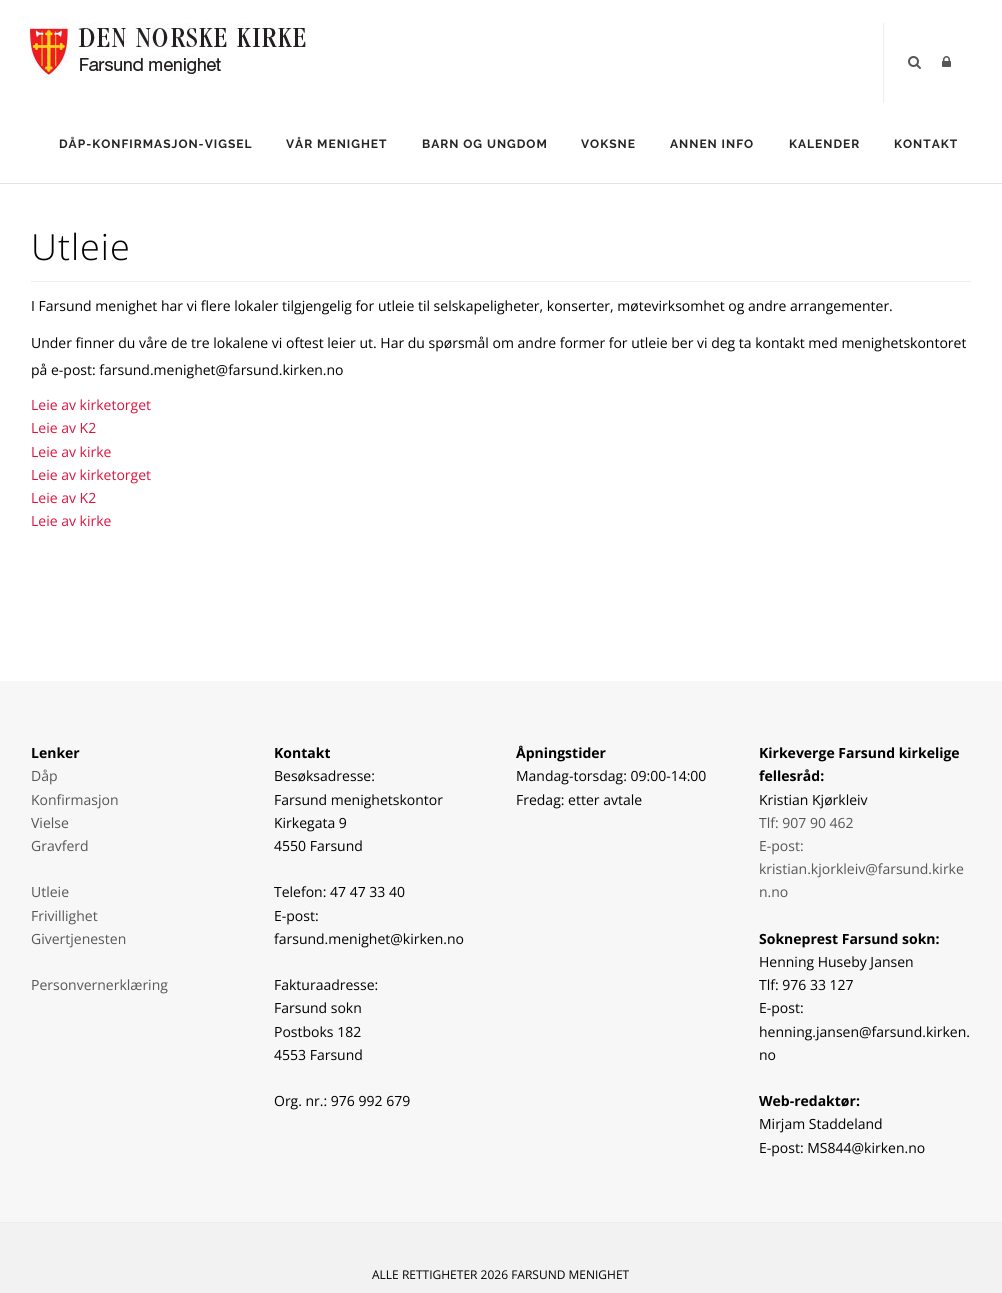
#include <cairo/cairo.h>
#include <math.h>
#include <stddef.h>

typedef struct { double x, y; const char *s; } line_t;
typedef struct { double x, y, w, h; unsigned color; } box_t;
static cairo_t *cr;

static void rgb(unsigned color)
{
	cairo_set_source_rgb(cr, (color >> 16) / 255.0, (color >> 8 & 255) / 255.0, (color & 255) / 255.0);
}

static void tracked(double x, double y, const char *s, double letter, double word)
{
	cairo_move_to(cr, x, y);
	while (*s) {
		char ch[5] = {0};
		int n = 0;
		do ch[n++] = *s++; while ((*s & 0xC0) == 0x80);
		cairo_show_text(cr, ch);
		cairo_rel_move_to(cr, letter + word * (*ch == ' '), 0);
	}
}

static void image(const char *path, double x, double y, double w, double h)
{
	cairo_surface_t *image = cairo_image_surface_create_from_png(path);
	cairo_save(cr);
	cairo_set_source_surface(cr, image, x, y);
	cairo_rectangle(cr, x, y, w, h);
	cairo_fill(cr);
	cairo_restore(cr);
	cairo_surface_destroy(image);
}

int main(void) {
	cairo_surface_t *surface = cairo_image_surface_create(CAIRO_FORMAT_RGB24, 1002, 1293);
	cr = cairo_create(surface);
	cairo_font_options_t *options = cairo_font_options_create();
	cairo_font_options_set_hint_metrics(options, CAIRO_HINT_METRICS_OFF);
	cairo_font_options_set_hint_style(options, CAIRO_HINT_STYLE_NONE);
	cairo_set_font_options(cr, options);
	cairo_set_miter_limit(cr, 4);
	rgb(0xffffff);
	cairo_paint(cr);
	rgb(0xe3e3e3);
	cairo_rectangle(cr, 0, 183, 1002, 1);
	cairo_fill(cr);
	image("img/1.png", 30, 23, 280, 55);
	rgb(0xeeeeee);
	cairo_rectangle(cr, 883, 23, 1, 80);
	cairo_fill(cr);
	image("img/2.png", 908, 56, 13, 13);
	image("img/3.png", 942, 56, 9, 11);
	{
		static const box_t items[] = {
			{31, 281, 940, 1, 0xeeeeee},
			{0, 681, 1002, 541, 0xf7f7f7},
			{0, 1223, 1002, 70, 0xf2f2f2},
			{0, 1222, 1002, 1, 0xededed},
		};
		for (size_t i = 0; i < sizeof items / sizeof *items; i++) {
			rgb(items[i].color);
			cairo_rectangle(cr, items[i].x, items[i].y, items[i].w, items[i].h);
			cairo_fill(cr);
		}
	}
	cairo_select_font_face(cr, "Raleway", CAIRO_FONT_SLANT_NORMAL, CAIRO_FONT_WEIGHT_BOLD);
	cairo_set_font_size(cr, 12);
	rgb(0x252525);
	{
		static const line_t items[] = {
			{59, 148, "DÅP-KONFIRMASJON-VIGSEL"},
			{286, 148, "VÅR MENIGHET"},
			{422, 148, "BARN OG UNGDOM"},
			{581, 148, "VOKSNE"},
			{670, 148, "ANNEN INFO"},
			{789, 148, "KALENDER"},
			{894, 148, "KONTAKT"},
		};
		for (size_t i = 0; i < sizeof items / sizeof *items; i++) {
			tracked(items[i].x, items[i].y, items[i].s, 1, 0);
		}
	}
	cairo_select_font_face(cr, "Open Sans Light", CAIRO_FONT_SLANT_NORMAL, CAIRO_FONT_WEIGHT_NORMAL);
	cairo_set_font_size(cr, 36);
	rgb(0x000000);
	tracked(31, 260, "Utleie", 1, 0);
	cairo_select_font_face(cr, "Open Sans", CAIRO_FONT_SLANT_NORMAL, CAIRO_FONT_WEIGHT_NORMAL);
	cairo_set_font_size(cr, 14);
	{
		static const line_t items[] = {
			{31, 311, "I Farsund menighet har vi flere lokaler tilgjengelig for utleie til selskapeligheter, konserter, møtevirksomhet og andre arrangementer."},
			{31, 348, "Under finner du våre de tre lokalene vi oftest leier ut. Har du spørsmål om andre former for utleie ber vi deg ta kontakt med menighetskontoret"},
			{31, 375, "på e-post: farsund.menighet@farsund.kirken.no"},
		};
		for (size_t i = 0; i < sizeof items / sizeof *items; i++) {
			cairo_move_to(cr, items[i].x, items[i].y);
			cairo_show_text(cr, items[i].s);
		}
	}
	rgb(0xdc143c);
	{
		static const line_t items[] = {
			{31, 410, "Leie av kirketorget"},
			{31, 433, "Leie av K2"},
			{31, 457, "Leie av kirke"},
			{31, 480, "Leie av kirketorget"},
			{31, 503, "Leie av K2"},
			{31, 526, "Leie av kirke"},
		};
		for (size_t i = 0; i < sizeof items / sizeof *items; i++) {
			cairo_move_to(cr, items[i].x, items[i].y);
			cairo_show_text(cr, items[i].s);
		}
	}
	cairo_select_font_face(cr, "Open Sans", CAIRO_FONT_SLANT_NORMAL, CAIRO_FONT_WEIGHT_BOLD);
	rgb(0x000000);
	cairo_move_to(cr, 31, 758);
	cairo_show_text(cr, "Lenker");
	cairo_select_font_face(cr, "Open Sans", CAIRO_FONT_SLANT_NORMAL, CAIRO_FONT_WEIGHT_NORMAL);
	rgb(0x565656);
	{
		static const line_t items[] = {
			{31, 781, "Dåp"},
			{31, 805, "Konfirmasjon"},
			{31, 828, "Vielse"},
			{31, 851, "Gravferd"},
			{31, 897, "Utleie"},
			{31, 921, "Frivillighet"},
			{31, 944, "Givertjenesten"},
			{31, 990, "Personvernerklæring"},
		};
		for (size_t i = 0; i < sizeof items / sizeof *items; i++) {
			cairo_move_to(cr, items[i].x, items[i].y);
			cairo_show_text(cr, items[i].s);
		}
	}
	cairo_select_font_face(cr, "Open Sans", CAIRO_FONT_SLANT_NORMAL, CAIRO_FONT_WEIGHT_BOLD);
	rgb(0x000000);
	cairo_move_to(cr, 274, 758);
	cairo_show_text(cr, "Kontakt");
	cairo_select_font_face(cr, "Open Sans", CAIRO_FONT_SLANT_NORMAL, CAIRO_FONT_WEIGHT_NORMAL);
	{
		static const line_t items[] = {
			{274, 781, "Besøksadresse:"},
			{274, 805, "Farsund menighetskontor"},
			{274, 828, "Kirkegata 9"},
			{274, 851, "4550 Farsund"},
			{274, 897, "Telefon: 47 47 33 40"},
			{274, 921, "E-post:"},
			{274, 944, "farsund.menighet@kirken.no"},
			{274, 990, "Fakturaadresse:"},
			{274, 1013, "Farsund sokn"},
			{274, 1037, "Postboks 182"},
			{274, 1060, "4553 Farsund"},
			{274, 1106, "Org. nr.: 976 992 679"},
		};
		for (size_t i = 0; i < sizeof items / sizeof *items; i++) {
			cairo_move_to(cr, items[i].x, items[i].y);
			cairo_show_text(cr, items[i].s);
		}
	}
	cairo_select_font_face(cr, "Open Sans", CAIRO_FONT_SLANT_NORMAL, CAIRO_FONT_WEIGHT_BOLD);
	cairo_move_to(cr, 516, 758);
	cairo_show_text(cr, "Åpningstider");
	cairo_select_font_face(cr, "Open Sans", CAIRO_FONT_SLANT_NORMAL, CAIRO_FONT_WEIGHT_NORMAL);
	cairo_move_to(cr, 516, 781);
	cairo_show_text(cr, "Mandag-torsdag: 09:00-14:00");
	cairo_move_to(cr, 516, 805);
	cairo_show_text(cr, "Fredag: etter avtale");
	cairo_select_font_face(cr, "Open Sans", CAIRO_FONT_SLANT_NORMAL, CAIRO_FONT_WEIGHT_BOLD);
	cairo_move_to(cr, 759, 758);
	cairo_show_text(cr, "Kirkeverge Farsund kirkelige");
	cairo_move_to(cr, 759, 781);
	cairo_show_text(cr, "fellesråd:");
	cairo_select_font_face(cr, "Open Sans", CAIRO_FONT_SLANT_NORMAL, CAIRO_FONT_WEIGHT_NORMAL);
	cairo_move_to(cr, 759, 805);
	cairo_show_text(cr, "Kristian Kjørkleiv");
	rgb(0x565656);
	{
		static const line_t items[] = {
			{759, 828, "Tlf: 907 90 462"},
			{759, 851, "E-post:"},
			{759, 874, "kristian.kjorkleiv@farsund.kirke"},
			{759, 897, "n.no"},
		};
		for (size_t i = 0; i < sizeof items / sizeof *items; i++) {
			cairo_move_to(cr, items[i].x, items[i].y);
			cairo_show_text(cr, items[i].s);
		}
	}
	cairo_select_font_face(cr, "Open Sans", CAIRO_FONT_SLANT_NORMAL, CAIRO_FONT_WEIGHT_BOLD);
	rgb(0x000000);
	cairo_move_to(cr, 759, 944);
	cairo_show_text(cr, "Sokneprest Farsund sokn:");
	cairo_select_font_face(cr, "Open Sans", CAIRO_FONT_SLANT_NORMAL, CAIRO_FONT_WEIGHT_NORMAL);
	{
		static const line_t items[] = {
			{759, 967, "Henning Huseby Jansen"},
			{759, 990, "Tlf: 976 33 127"},
			{759, 1013, "E-post:"},
			{759, 1037, "henning.jansen@farsund.kirken."},
			{759, 1060, "no"},
		};
		for (size_t i = 0; i < sizeof items / sizeof *items; i++) {
			cairo_move_to(cr, items[i].x, items[i].y);
			cairo_show_text(cr, items[i].s);
		}
	}
	cairo_select_font_face(cr, "Open Sans", CAIRO_FONT_SLANT_NORMAL, CAIRO_FONT_WEIGHT_BOLD);
	cairo_move_to(cr, 759, 1106);
	cairo_show_text(cr, "Web-redaktør:");
	cairo_select_font_face(cr, "Open Sans", CAIRO_FONT_SLANT_NORMAL, CAIRO_FONT_WEIGHT_NORMAL);
	cairo_move_to(cr, 759, 1129);
	cairo_show_text(cr, "Mirjam Staddeland");
	cairo_move_to(cr, 759, 1153);
	cairo_show_text(cr, "E-post: MS844@kirken.no");
	cairo_set_font_size(cr, 12);
	cairo_move_to(cr, 372, 1279);
	cairo_show_text(cr, "ALLE RETTIGHETER 2026 FARSUND MENIGHET");
	cairo_surface_write_to_png(surface, "page.png");
	cairo_font_options_destroy(options);
	cairo_destroy(cr);
	cairo_surface_destroy(surface);
	return 0;
}
